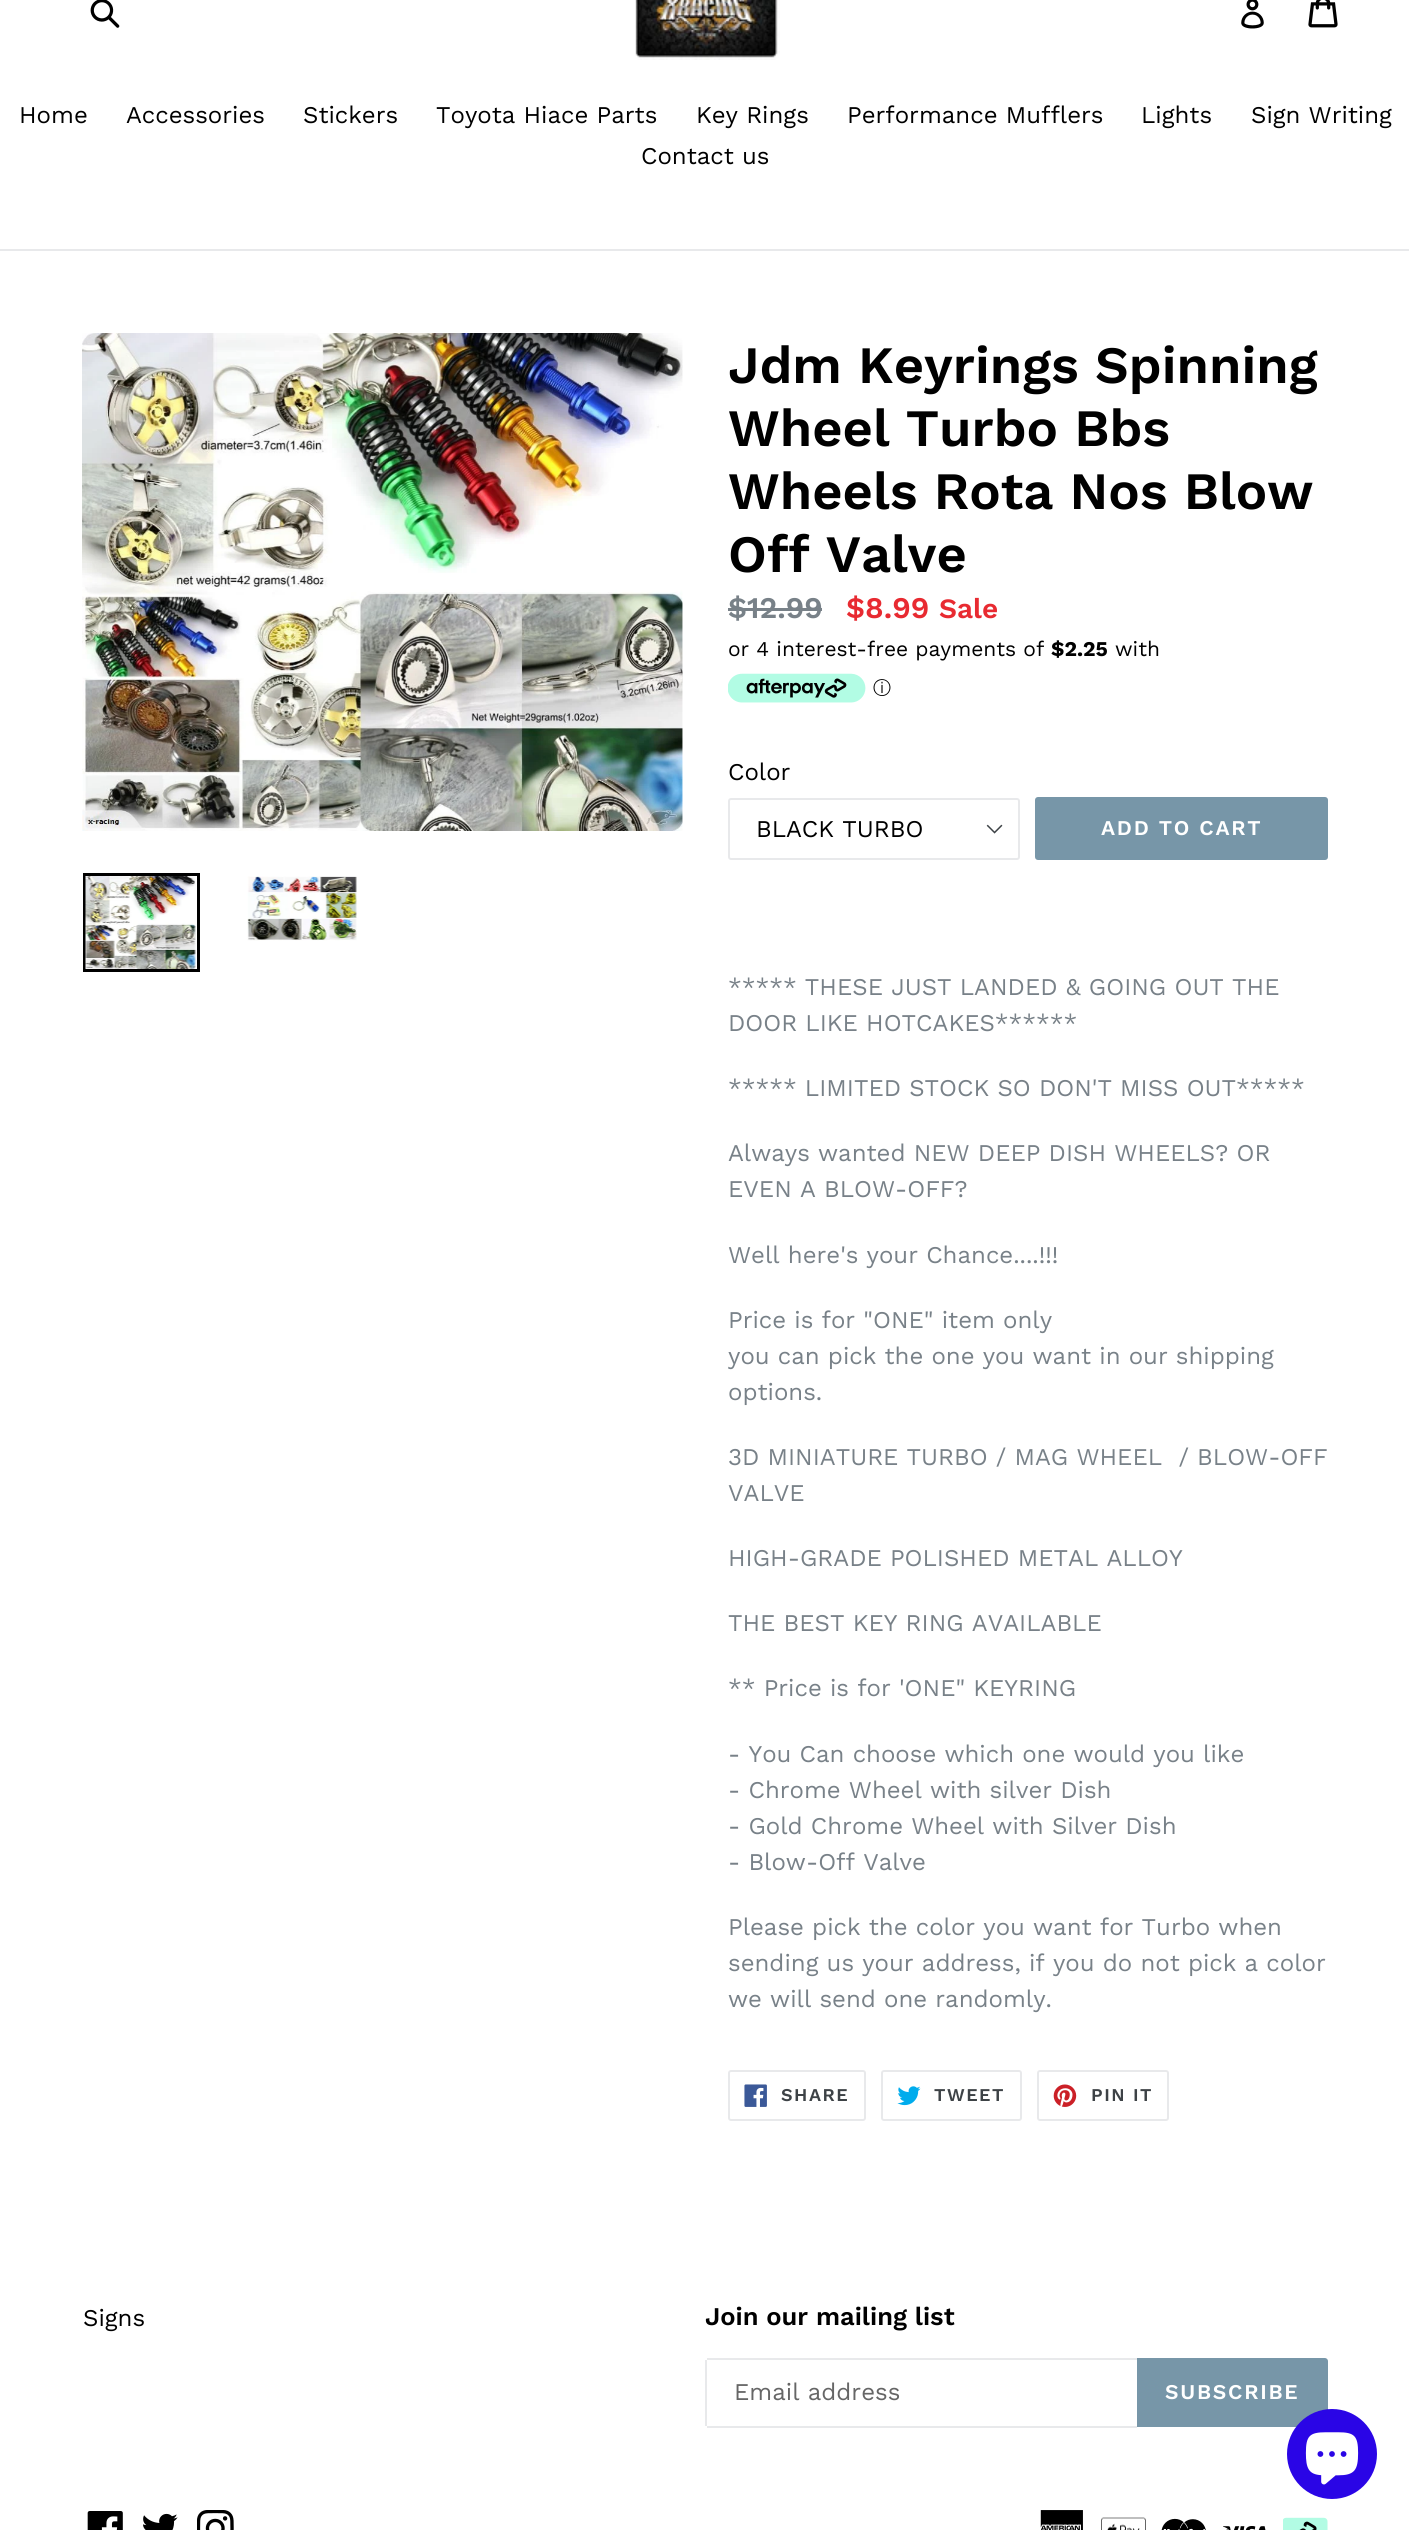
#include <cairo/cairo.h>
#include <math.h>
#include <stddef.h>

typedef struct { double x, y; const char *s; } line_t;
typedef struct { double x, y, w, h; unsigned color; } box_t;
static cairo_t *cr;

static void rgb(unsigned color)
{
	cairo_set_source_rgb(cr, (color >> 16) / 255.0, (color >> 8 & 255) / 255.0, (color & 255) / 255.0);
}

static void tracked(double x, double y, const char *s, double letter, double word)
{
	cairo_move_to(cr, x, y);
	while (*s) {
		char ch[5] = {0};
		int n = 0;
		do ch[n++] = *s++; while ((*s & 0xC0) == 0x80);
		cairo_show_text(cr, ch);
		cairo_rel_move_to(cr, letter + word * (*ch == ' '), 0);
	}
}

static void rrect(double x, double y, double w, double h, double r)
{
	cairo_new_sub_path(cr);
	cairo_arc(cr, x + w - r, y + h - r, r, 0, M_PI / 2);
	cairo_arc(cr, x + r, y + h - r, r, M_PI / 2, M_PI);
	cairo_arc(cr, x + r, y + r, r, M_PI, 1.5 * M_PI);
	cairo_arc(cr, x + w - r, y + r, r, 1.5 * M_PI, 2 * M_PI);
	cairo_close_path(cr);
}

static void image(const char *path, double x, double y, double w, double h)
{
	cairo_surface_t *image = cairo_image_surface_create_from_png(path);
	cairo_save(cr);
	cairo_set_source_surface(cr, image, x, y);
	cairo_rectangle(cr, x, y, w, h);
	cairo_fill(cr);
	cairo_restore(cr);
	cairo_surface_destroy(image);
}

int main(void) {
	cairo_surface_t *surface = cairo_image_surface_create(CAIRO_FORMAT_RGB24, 1409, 2530);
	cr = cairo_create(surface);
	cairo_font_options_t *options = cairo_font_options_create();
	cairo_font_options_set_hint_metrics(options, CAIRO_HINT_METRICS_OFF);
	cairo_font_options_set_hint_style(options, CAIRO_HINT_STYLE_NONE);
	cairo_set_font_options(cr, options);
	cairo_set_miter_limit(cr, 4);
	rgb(0xffffff);
	cairo_paint(cr);
	image("img/1.png", 90, 0, 30, 28);
	image("img/2.png", 635, 0, 145, 60);
	image("img/3.png", 1241, 0, 23, 29);
	image("img/4.png", 1308, 0, 30, 28);
	rgb(0xe8e9eb);
	cairo_rectangle(cr, 0, 249, 1409, 2);
	cairo_fill(cr);
	image("img/5.png", 82, 333, 601, 498);
	cairo_rectangle(cr, 84.5, 874.5, 114, 96);
	rgb(0x000000);
	cairo_set_line_width(cr, 3);
	cairo_stroke(cr);
	image("img/6.png", 85, 876, 111, 93);
	image("img/7.png", 247, 876, 110, 65);
	rgb(0x788188);
	cairo_rectangle(cr, 728, 608, 94, 3);
	cairo_fill(cr);
	image("img/8.png", 728, 673, 138, 30);
	image("img/9.png", 986, 824, 17, 10);
	rrect(729, 799, 290, 60, 2);
	rgb(0xe8e9eb);
	cairo_set_line_width(cr, 2);
	cairo_stroke(cr);
	rgb(0x7796a8);
	rrect(1035, 797, 293, 63, 3);
	cairo_fill(cr);
	rrect(729, 2071, 136, 49, 2);
	rgb(0xe8e9eb);
	cairo_stroke(cr);
	image("img/10.png", 744, 2084, 23, 23);
	rrect(882, 2071, 139, 49, 2);
	cairo_stroke(cr);
	image("img/11.png", 897, 2086, 24, 20);
	rrect(1038, 2071, 130, 49, 2);
	cairo_stroke(cr);
	image("img/12.png", 1053, 2084, 24, 23);
	{
		static const box_t items[] = {
			{707, 2358, 430, 2, 0xe8e9eb},
			{707, 2426, 430, 2, 0xe8e9eb},
			{705, 2360, 2, 66, 0xe8e9eb},
		};
		for (size_t i = 0; i < sizeof items / sizeof *items; i++) {
			rgb(items[i].color);
			cairo_rectangle(cr, items[i].x, items[i].y, items[i].w, items[i].h);
			cairo_fill(cr);
		}
	}
	rgb(0x7796a8);
	cairo_new_path(cr);
	cairo_move_to(cr, 1137, 2358);
	cairo_line_to(cr, 1325, 2358);
	cairo_curve_to(cr, 1326.5, 2358, 1328, 2359.5, 1328, 2361);
	cairo_line_to(cr, 1328, 2424);
	cairo_curve_to(cr, 1328, 2425.5, 1326.5, 2427, 1325, 2427);
	cairo_line_to(cr, 1137, 2427);
	cairo_close_path(cr);
	cairo_fill(cr);
	image("img/13.png", 87, 2511, 36, 19);
	image("img/14.png", 143, 2513, 35, 17);
	image("img/15.png", 197, 2510, 37, 20);
	image("img/16.png", 1040, 2510, 43, 20);
	image("img/17.png", 1101, 2517, 45, 13);
	image("img/18.png", 1161, 2518, 45, 12);
	image("img/19.png", 1223, 2526, 43, 4);
	image("img/20.png", 1283, 2517, 45, 13);
	rgb(0x2a05e6);
	cairo_arc(cr, 1332, 2454, 45, 0, 2 * M_PI);
	cairo_fill(cr);
	image("img/21.png", 1305, 2432, 54, 53);
	cairo_select_font_face(cr, "Work Sans", CAIRO_FONT_SLANT_NORMAL, CAIRO_FONT_WEIGHT_NORMAL);
	cairo_set_font_size(cr, 24);
	rgb(0x000000);
	{
		static const line_t items[] = {
			{19, 123, "Home"},
			{126, 123, "Accessories"},
			{303, 123, "Stickers"},
			{436, 123, "Toyota Hiace Parts"},
			{696, 123, "Key Rings"},
			{847, 123, "Performance Mufflers"},
			{1141, 123, "Lights"},
			{1251, 123, "Sign Writing"},
			{641, 164, "Contact us"},
		};
		for (size_t i = 0; i < sizeof items / sizeof *items; i++) {
			cairo_move_to(cr, items[i].x, items[i].y);
			cairo_show_text(cr, items[i].s);
		}
	}
	cairo_select_font_face(cr, "Work Sans SemiBold", CAIRO_FONT_SLANT_NORMAL, CAIRO_FONT_WEIGHT_NORMAL);
	cairo_set_font_size(cr, 52.5);
	{
		static const line_t items[] = {
			{728, 383, "Jdm Keyrings Spinning"},
			{728, 446, "Wheel Turbo Bbs"},
			{728, 509, "Wheels Rota Nos Blow"},
			{728, 572, "Off Valve"},
		};
		for (size_t i = 0; i < sizeof items / sizeof *items; i++) {
			cairo_move_to(cr, items[i].x, items[i].y);
			cairo_show_text(cr, items[i].s);
		}
	}
	cairo_set_font_size(cr, 30);
	rgb(0x788188);
	cairo_move_to(cr, 728, 618);
	cairo_show_text(cr, "$12.99");
	rgb(0xe82a31);
	cairo_move_to(cr, 846, 618);
	cairo_show_text(cr, "$8.99");
	cairo_set_font_size(cr, 28);
	cairo_move_to(cr, 939, 618);
	cairo_show_text(cr, "Sale");
	cairo_select_font_face(cr, "Work Sans", CAIRO_FONT_SLANT_NORMAL, CAIRO_FONT_WEIGHT_NORMAL);
	cairo_set_font_size(cr, 21);
	rgb(0x000000);
	cairo_move_to(cr, 728, 656);
	cairo_show_text(cr, "or 4 interest-free payments of");
	cairo_select_font_face(cr, "Work Sans", CAIRO_FONT_SLANT_NORMAL, CAIRO_FONT_WEIGHT_BOLD);
	cairo_move_to(cr, 1051, 656);
	cairo_show_text(cr, "$2.25");
	cairo_select_font_face(cr, "Work Sans", CAIRO_FONT_SLANT_NORMAL, CAIRO_FONT_WEIGHT_NORMAL);
	cairo_move_to(cr, 1115, 656);
	cairo_show_text(cr, "with");
	cairo_select_font_face(cr, "WenQuanYi Zen Hei Medium", CAIRO_FONT_SLANT_NORMAL, CAIRO_FONT_WEIGHT_NORMAL);
	cairo_set_font_size(cr, 18);
	cairo_move_to(cr, 873, 694);
	cairo_show_text(cr, "ⓘ");
	cairo_select_font_face(cr, "Work Sans", CAIRO_FONT_SLANT_NORMAL, CAIRO_FONT_WEIGHT_NORMAL);
	cairo_set_font_size(cr, 24);
	cairo_move_to(cr, 728, 780);
	cairo_show_text(cr, "Color");
	cairo_move_to(cr, 756, 837);
	cairo_show_text(cr, "BLACK TURBO");
	cairo_select_font_face(cr, "Work Sans SemiBold", CAIRO_FONT_SLANT_NORMAL, CAIRO_FONT_WEIGHT_NORMAL);
	cairo_set_font_size(cr, 21);
	rgb(0xffffff);
	tracked(1101, 835, "ADD TO CART", 1.75, 0);
	cairo_select_font_face(cr, "Work Sans", CAIRO_FONT_SLANT_NORMAL, CAIRO_FONT_WEIGHT_NORMAL);
	cairo_set_font_size(cr, 24);
	rgb(0x788188);
	{
		static const line_t items[] = {
			{728, 995, "***** THESE JUST LANDED & GOING OUT THE"},
			{728, 1031, "DOOR LIKE HOTCAKES******"},
			{728, 1096, "***** LIMITED STOCK SO DON'T MISS OUT*****"},
			{728, 1161, "Always wanted NEW DEEP DISH WHEELS? OR"},
			{728, 1197, "EVEN A BLOW-OFF?"},
			{728, 1263, "Well here's your Chance....!!!"},
			{728, 1328, "Price is for \"ONE\" item only"},
			{728, 1364, "you can pick the one you want in our shipping"},
			{728, 1400, "options."},
			{728, 1465, "3D MINIATURE TURBO / MAG WHEEL  / BLOW-OFF"},
			{728, 1501, "VALVE"},
			{728, 1566, "HIGH-GRADE POLISHED METAL ALLOY"},
			{728, 1631, "THE BEST KEY RING AVAILABLE"},
			{728, 1696, "** Price is for 'ONE\" KEYRING"},
			{728, 1762, "- You Can choose which one would you like"},
			{728, 1798, "- Chrome Wheel with silver Dish"},
			{728, 1834, "- Gold Chrome Wheel with Silver Dish"},
			{728, 1870, "- Blow-Off Valve"},
			{728, 1935, "Please pick the color you want for Turbo when"},
			{728, 1971, "sending us your address, if you do not pick a color"},
			{728, 2007, "we will send one randomly."},
		};
		for (size_t i = 0; i < sizeof items / sizeof *items; i++) {
			cairo_move_to(cr, items[i].x, items[i].y);
			cairo_show_text(cr, items[i].s);
		}
	}
	cairo_select_font_face(cr, "Work Sans SemiBold", CAIRO_FONT_SLANT_NORMAL, CAIRO_FONT_WEIGHT_NORMAL);
	cairo_set_font_size(cr, 18);
	rgb(0x3d4246);
	{
		static const line_t items[] = {
			{781, 2101, "SHARE"},
			{934, 2101, "TWEET"},
			{1091, 2101, "PIN IT"},
		};
		for (size_t i = 0; i < sizeof items / sizeof *items; i++) {
			tracked(items[i].x, items[i].y, items[i].s, 1.5, 0);
		}
	}
	cairo_select_font_face(cr, "Work Sans", CAIRO_FONT_SLANT_NORMAL, CAIRO_FONT_WEIGHT_NORMAL);
	cairo_set_font_size(cr, 24);
	rgb(0x000000);
	cairo_move_to(cr, 83, 2326);
	cairo_show_text(cr, "Signs");
	cairo_select_font_face(cr, "Work Sans SemiBold", CAIRO_FONT_SLANT_NORMAL, CAIRO_FONT_WEIGHT_NORMAL);
	cairo_set_font_size(cr, 25.5);
	cairo_move_to(cr, 705, 2325);
	cairo_show_text(cr, "Join our mailing list");
	cairo_select_font_face(cr, "Work Sans", CAIRO_FONT_SLANT_NORMAL, CAIRO_FONT_WEIGHT_NORMAL);
	cairo_set_font_size(cr, 24);
	rgb(0x666666);
	cairo_move_to(cr, 734, 2400);
	cairo_show_text(cr, "Email address");
	cairo_select_font_face(cr, "Work Sans SemiBold", CAIRO_FONT_SLANT_NORMAL, CAIRO_FONT_WEIGHT_NORMAL);
	cairo_set_font_size(cr, 21);
	rgb(0xffffff);
	tracked(1165, 2399, "SUBSCRIBE", 1.75, 0);
	cairo_surface_write_to_png(surface, "page.png");
	cairo_font_options_destroy(options);
	cairo_destroy(cr);
	cairo_surface_destroy(surface);
	return 0;
}
